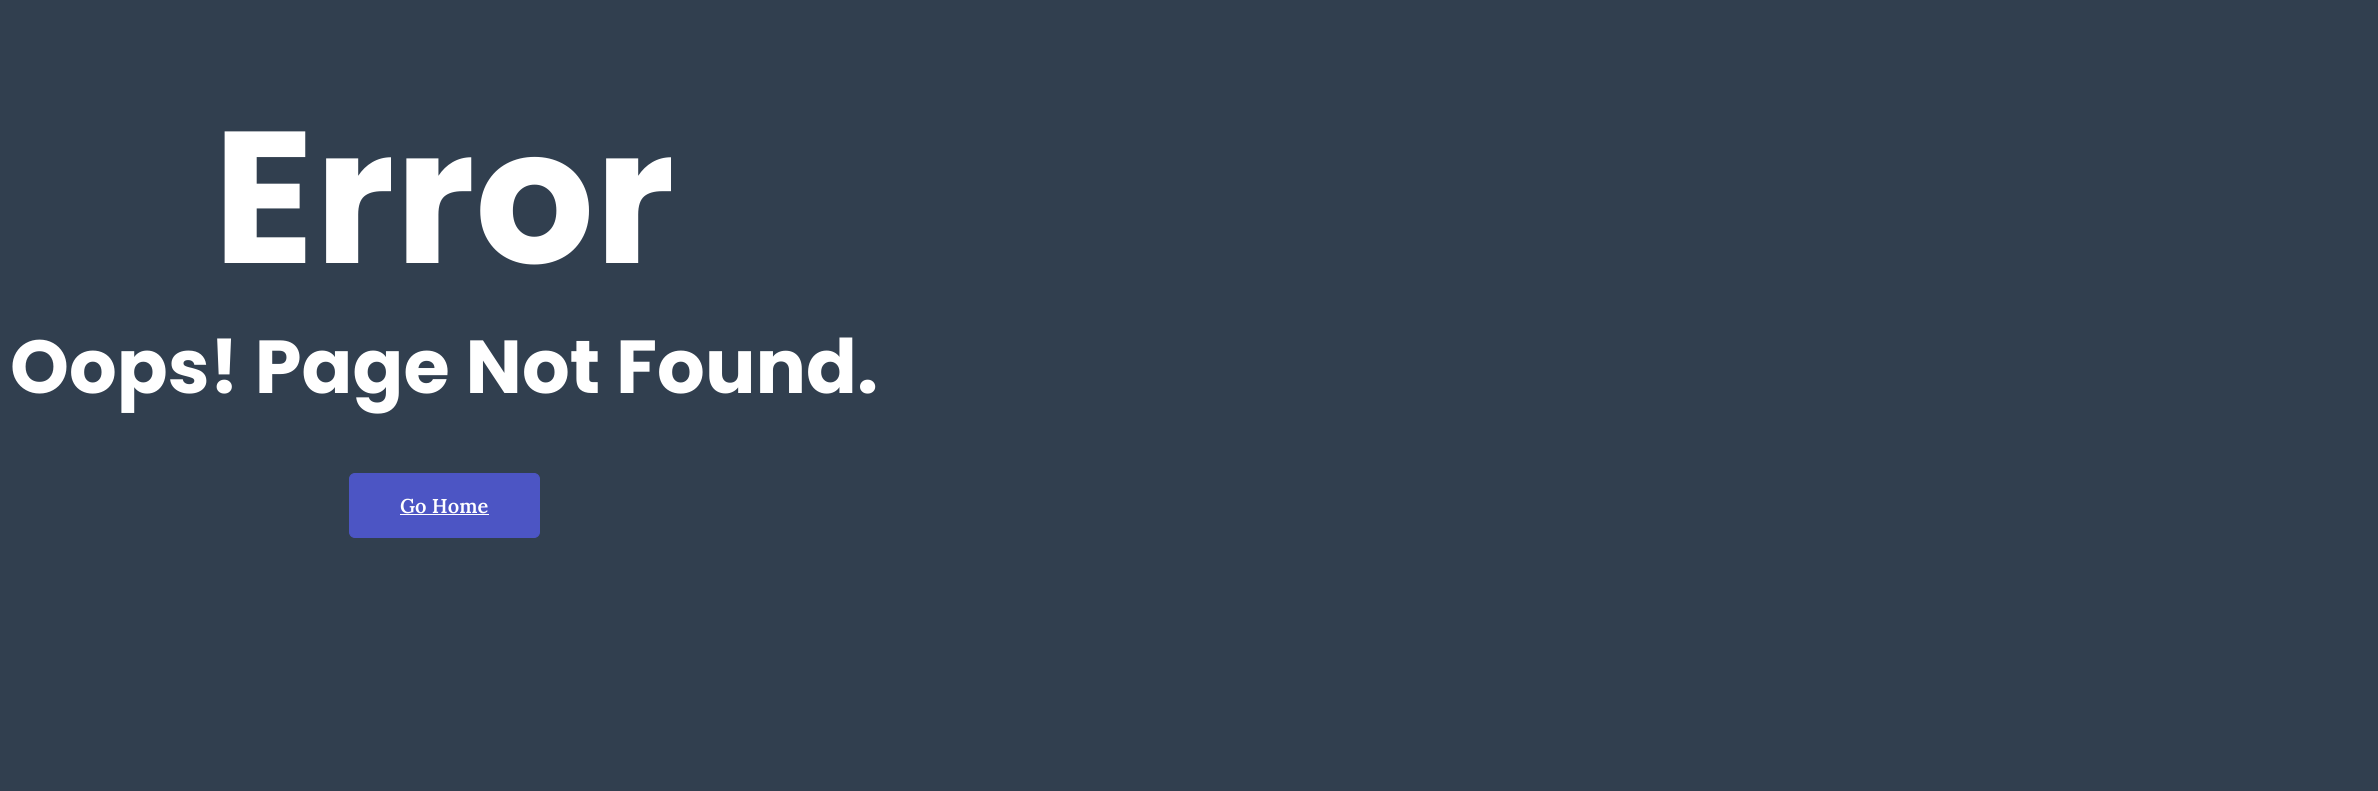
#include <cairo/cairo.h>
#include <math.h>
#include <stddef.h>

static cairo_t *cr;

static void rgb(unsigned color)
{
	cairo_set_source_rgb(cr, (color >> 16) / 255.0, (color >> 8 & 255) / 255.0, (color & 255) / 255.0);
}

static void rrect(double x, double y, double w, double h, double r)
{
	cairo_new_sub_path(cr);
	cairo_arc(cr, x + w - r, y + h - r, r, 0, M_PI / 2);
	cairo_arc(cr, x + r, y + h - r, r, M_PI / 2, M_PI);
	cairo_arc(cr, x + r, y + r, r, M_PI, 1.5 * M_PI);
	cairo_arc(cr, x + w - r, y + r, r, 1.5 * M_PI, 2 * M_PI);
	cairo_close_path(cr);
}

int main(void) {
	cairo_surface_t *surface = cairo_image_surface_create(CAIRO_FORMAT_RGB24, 2378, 791);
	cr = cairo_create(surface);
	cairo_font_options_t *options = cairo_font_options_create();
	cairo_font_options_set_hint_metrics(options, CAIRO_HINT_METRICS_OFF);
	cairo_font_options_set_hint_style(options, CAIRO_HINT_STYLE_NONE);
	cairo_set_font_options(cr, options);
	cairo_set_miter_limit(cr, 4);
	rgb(0x313f4f);
	cairo_paint(cr);
	rgb(0x4c55c4);
	rrect(349.5, 473.5, 190, 64, 5.5);
	cairo_fill_preserve(cr);
	cairo_set_line_width(cr, 1);
	cairo_stroke(cr);
	rgb(0xffffff);
	cairo_rectangle(cr, 400, 514, 89, 1);
	cairo_fill(cr);
	cairo_select_font_face(cr, "Poppins", CAIRO_FONT_SLANT_NORMAL, CAIRO_FONT_WEIGHT_BOLD);
	cairo_set_font_size(cr, 187.5);
	cairo_move_to(cr, 213, 263);
	cairo_show_text(cr, "Error");
	cairo_set_font_size(cr, 75);
	cairo_move_to(cr, 10, 393);
	cairo_show_text(cr, "Oops! Page Not Found.");
	cairo_select_font_face(cr, "Lora SemiBold", CAIRO_FONT_SLANT_NORMAL, CAIRO_FONT_WEIGHT_NORMAL);
	cairo_set_font_size(cr, 20);
	cairo_move_to(cr, 400, 513);
	cairo_show_text(cr, "Go Home");
	cairo_surface_write_to_png(surface, "page.png");
	cairo_font_options_destroy(options);
	cairo_destroy(cr);
	cairo_surface_destroy(surface);
	return 0;
}
